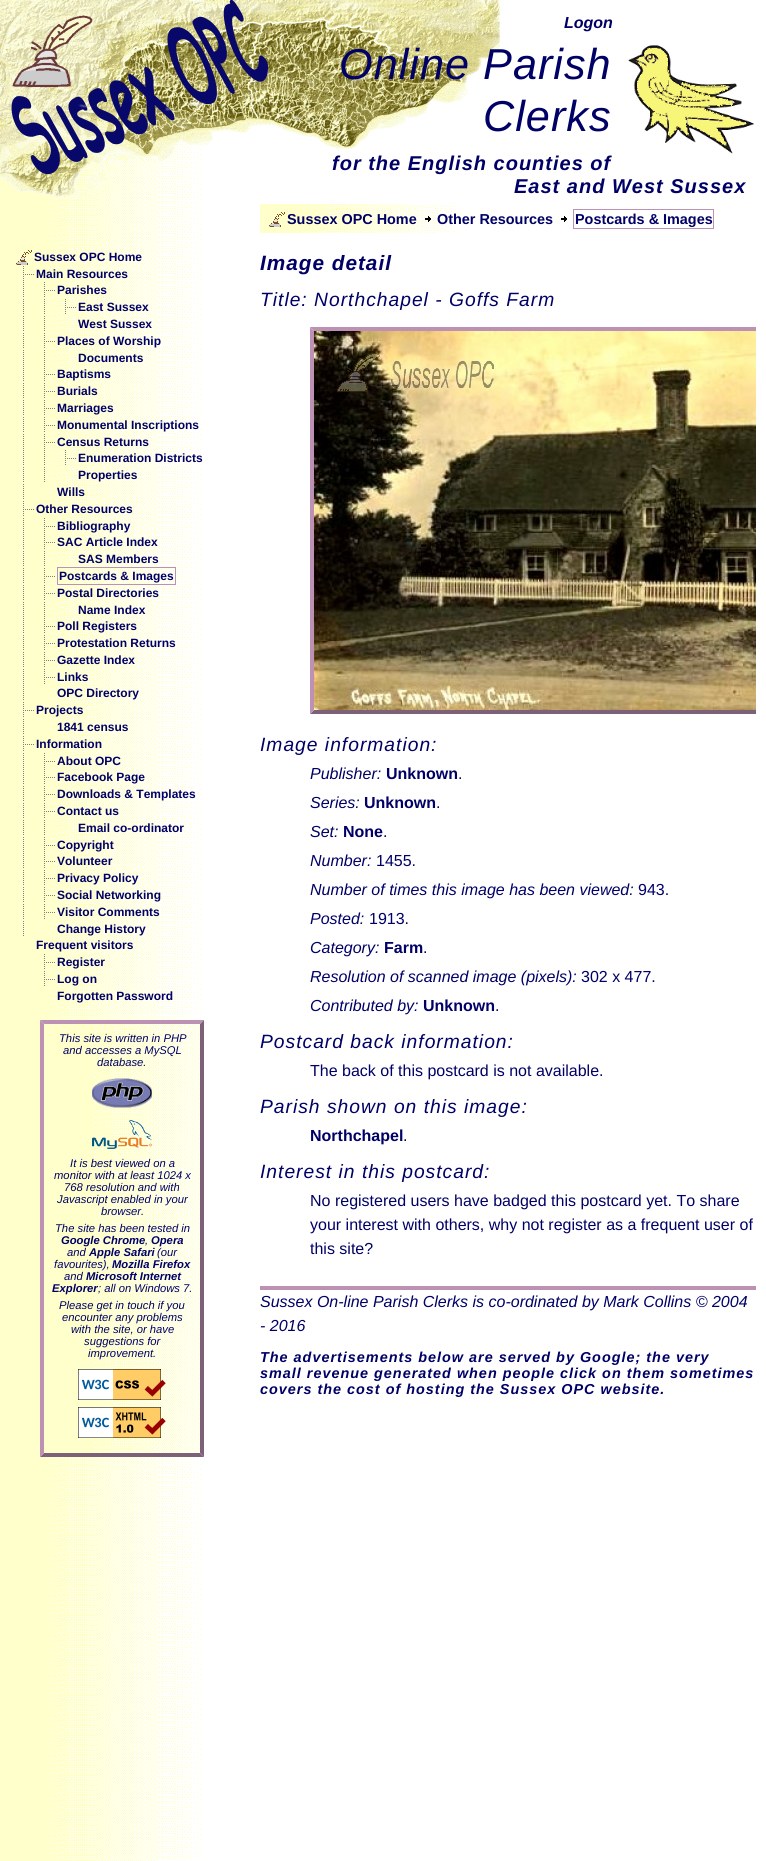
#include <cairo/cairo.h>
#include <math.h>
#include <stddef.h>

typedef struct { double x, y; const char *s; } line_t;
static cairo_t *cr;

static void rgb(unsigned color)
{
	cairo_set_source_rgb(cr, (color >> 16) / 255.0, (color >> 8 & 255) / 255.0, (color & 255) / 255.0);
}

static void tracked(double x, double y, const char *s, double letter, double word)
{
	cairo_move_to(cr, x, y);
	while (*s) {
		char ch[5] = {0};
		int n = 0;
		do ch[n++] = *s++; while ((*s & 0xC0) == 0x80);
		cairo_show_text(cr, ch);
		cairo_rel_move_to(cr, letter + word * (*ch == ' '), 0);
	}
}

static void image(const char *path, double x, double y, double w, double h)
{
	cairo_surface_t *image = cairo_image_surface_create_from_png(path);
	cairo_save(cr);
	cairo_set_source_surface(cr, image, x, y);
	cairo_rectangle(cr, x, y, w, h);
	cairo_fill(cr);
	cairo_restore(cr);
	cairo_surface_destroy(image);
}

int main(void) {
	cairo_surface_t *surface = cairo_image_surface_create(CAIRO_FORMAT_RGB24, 766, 1861);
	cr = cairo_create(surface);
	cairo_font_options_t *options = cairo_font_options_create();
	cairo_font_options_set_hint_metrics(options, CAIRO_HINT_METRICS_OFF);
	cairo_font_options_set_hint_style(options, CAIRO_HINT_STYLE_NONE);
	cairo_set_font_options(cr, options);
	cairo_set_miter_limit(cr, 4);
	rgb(0xffffff);
	cairo_paint(cr);
	image("img/1.png", 0, 0, 201, 1861);
	image("img/2.png", 0, 0, 500, 200);
	image("img/3.png", 628, 45, 126, 109);
	image("img/4.png", 16, 250, 16, 15);
	image("img/5.png", 23, 266, 11, 15);
	image("img/6.png", 23, 282, 1, 15);
	image("img/7.png", 44, 282, 11, 15);
	image("img/6.png", 23, 299, 1, 15);
	image("img/6.png", 44, 299, 1, 15);
	image("img/8.png", 65, 299, 11, 15);
	image("img/6.png", 23, 316, 1, 15);
	image("img/6.png", 44, 316, 1, 15);
	image("img/6.png", 23, 333, 1, 15);
	image("img/9.png", 44, 333, 11, 15);
	image("img/6.png", 23, 350, 1, 15);
	image("img/6.png", 44, 350, 1, 15);
	image("img/6.png", 23, 366, 1, 15);
	image("img/10.png", 44, 366, 11, 15);
	image("img/6.png", 23, 383, 1, 15);
	image("img/9.png", 44, 383, 11, 15);
	image("img/6.png", 23, 400, 1, 15);
	image("img/11.png", 44, 400, 11, 15);
	image("img/6.png", 23, 417, 1, 15);
	image("img/7.png", 44, 417, 11, 15);
	image("img/6.png", 23, 434, 1, 15);
	image("img/12.png", 44, 434, 11, 15);
	image("img/6.png", 23, 450, 1, 15);
	image("img/6.png", 44, 450, 1, 15);
	image("img/13.png", 65, 450, 11, 15);
	image("img/6.png", 23, 467, 1, 15);
	image("img/6.png", 44, 467, 1, 15);
	image("img/6.png", 23, 484, 1, 15);
	image("img/5.png", 23, 501, 11, 15);
	image("img/6.png", 23, 518, 1, 15);
	image("img/9.png", 44, 518, 11, 15);
	image("img/6.png", 23, 534, 1, 15);
	image("img/12.png", 44, 534, 11, 15);
	image("img/6.png", 23, 551, 1, 15);
	image("img/6.png", 44, 551, 1, 15);
	image("img/6.png", 23, 568, 1, 15);
	image("img/9.png", 44, 568, 11, 15);
	cairo_rectangle(cr, 57.5, 567.5, 118, 17);
	rgb(0xbc91b4);
	cairo_set_line_width(cr, 1);
	cairo_stroke(cr);
	image("img/6.png", 23, 585, 1, 15);
	image("img/11.png", 44, 585, 11, 15);
	image("img/6.png", 23, 602, 1, 15);
	image("img/6.png", 44, 602, 1, 15);
	image("img/6.png", 23, 618, 1, 15);
	image("img/9.png", 44, 618, 11, 15);
	image("img/6.png", 23, 635, 1, 15);
	image("img/11.png", 44, 635, 11, 15);
	image("img/6.png", 23, 652, 1, 15);
	image("img/7.png", 44, 652, 11, 15);
	image("img/6.png", 23, 669, 1, 15);
	image("img/12.png", 44, 669, 11, 15);
	image("img/6.png", 23, 685, 1, 15);
	image("img/5.png", 23, 702, 11, 15);
	image("img/6.png", 23, 719, 1, 15);
	image("img/5.png", 23, 736, 11, 15);
	image("img/6.png", 23, 753, 1, 15);
	image("img/9.png", 44, 753, 11, 15);
	image("img/6.png", 23, 769, 1, 15);
	image("img/12.png", 44, 769, 11, 15);
	image("img/6.png", 23, 786, 1, 15);
	image("img/10.png", 44, 786, 11, 15);
	image("img/6.png", 23, 803, 1, 15);
	image("img/9.png", 44, 803, 11, 15);
	image("img/6.png", 23, 820, 1, 15);
	image("img/6.png", 44, 820, 1, 15);
	image("img/6.png", 23, 837, 1, 15);
	image("img/7.png", 44, 837, 11, 15);
	image("img/6.png", 23, 853, 1, 15);
	image("img/9.png", 44, 853, 11, 15);
	image("img/6.png", 23, 870, 1, 15);
	image("img/11.png", 44, 870, 11, 15);
	image("img/6.png", 23, 887, 1, 15);
	image("img/7.png", 44, 887, 11, 15);
	image("img/6.png", 23, 904, 1, 15);
	image("img/12.png", 44, 904, 11, 15);
	image("img/6.png", 23, 921, 1, 15);
	image("img/12.png", 44, 954, 11, 15);
	image("img/10.png", 44, 971, 11, 15);
	image("img/14.png", 51, 1020, 153, 437);
	cairo_new_path(cr);
	cairo_move_to(cr, 40, 1020);
	cairo_line_to(cr, 204, 1020);
	cairo_line_to(cr, 200, 1024);
	cairo_line_to(cr, 44, 1024);
	cairo_close_path(cr);
	cairo_fill(cr);
	rgb(0x7d6178);
	cairo_new_path(cr);
	cairo_move_to(cr, 204, 1020);
	cairo_line_to(cr, 204, 1457);
	cairo_line_to(cr, 200, 1453);
	cairo_line_to(cr, 200, 1024);
	cairo_close_path(cr);
	cairo_fill(cr);
	cairo_new_path(cr);
	cairo_move_to(cr, 204, 1457);
	cairo_line_to(cr, 40, 1457);
	cairo_line_to(cr, 44, 1453);
	cairo_line_to(cr, 200, 1453);
	cairo_close_path(cr);
	cairo_fill(cr);
	rgb(0xbc91b4);
	cairo_new_path(cr);
	cairo_move_to(cr, 40, 1457);
	cairo_line_to(cr, 40, 1020);
	cairo_line_to(cr, 44, 1024);
	cairo_line_to(cr, 44, 1453);
	cairo_close_path(cr);
	cairo_fill(cr);
	image("img/15.png", 92, 1078, 60, 30);
	image("img/16.png", 92, 1120, 60, 29);
	image("img/17.png", 78, 1369, 88, 31);
	image("img/18.png", 78, 1407, 88, 31);
	image("img/19.png", 260, 204, 201, 29);
	image("img/4.png", 269, 212, 16, 15);
	image("img/20.png", 425, 216, 6, 6);
	image("img/21.png", 561, 216, 6, 6);
	cairo_rectangle(cr, 573.5, 209.5, 140, 19);
	cairo_stroke(cr);
	cairo_save(cr);
	cairo_rectangle(cr, 260, 243, 496, 1468);
	cairo_clip(cr);
	cairo_new_path(cr);
	cairo_move_to(cr, 310, 327);
	cairo_line_to(cr, 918, 327);
	cairo_line_to(cr, 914, 331);
	cairo_line_to(cr, 314, 331);
	cairo_close_path(cr);
	cairo_fill(cr);
	rgb(0x7d6178);
	cairo_new_path(cr);
	cairo_move_to(cr, 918, 714);
	cairo_line_to(cr, 310, 714);
	cairo_line_to(cr, 314, 710);
	cairo_line_to(cr, 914, 710);
	cairo_close_path(cr);
	cairo_fill(cr);
	cairo_restore(cr);
	cairo_new_path(cr);
	cairo_move_to(cr, 310, 714);
	cairo_line_to(cr, 310, 327);
	cairo_line_to(cr, 314, 331);
	cairo_line_to(cr, 314, 710);
	cairo_close_path(cr);
	cairo_fill(cr);
	image("img/22.png", 314, 331, 442, 379);
	cairo_rectangle(cr, 260, 1286, 496, 4);
	cairo_fill(cr);
	cairo_select_font_face(cr, "Liberation Sans", CAIRO_FONT_SLANT_ITALIC, CAIRO_FONT_WEIGHT_BOLD);
	cairo_set_font_size(cr, 16);
	rgb(0x000066);
	cairo_move_to(cr, 564, 28);
	cairo_show_text(cr, "Logon");
	cairo_select_font_face(cr, "Liberation Sans", CAIRO_FONT_SLANT_ITALIC, CAIRO_FONT_WEIGHT_NORMAL);
	cairo_set_font_size(cr, 43.25);
	tracked(339, 79, "Online Parish", 1, 0);
	tracked(483, 131, "Clerks", 1, 0);
	cairo_select_font_face(cr, "Liberation Sans", CAIRO_FONT_SLANT_ITALIC, CAIRO_FONT_WEIGHT_BOLD);
	cairo_set_font_size(cr, 20);
	tracked(332, 170, "for the English counties of", 1, 0);
	tracked(514, 193, "East and West Sussex", 1, 0);
	cairo_select_font_face(cr, "Liberation Sans", CAIRO_FONT_SLANT_NORMAL, CAIRO_FONT_WEIGHT_BOLD);
	cairo_set_font_size(cr, 12);
	{
		static const line_t items[] = {
			{34, 261, "Sussex OPC Home"},
			{36, 278, "Main Resources"},
			{57, 294, "Parishes"},
			{78, 311, "East Sussex"},
			{78, 328, "West Sussex"},
			{57, 345, "Places of Worship"},
			{78, 362, "Documents"},
			{57, 378, "Baptisms"},
			{57, 395, "Burials"},
			{57, 412, "Marriages"},
			{57, 429, "Monumental Inscriptions"},
			{57, 446, "Census Returns"},
			{78, 462, "Enumeration Districts"},
			{78, 479, "Properties"},
			{57, 496, "Wills"},
			{36, 513, "Other Resources"},
			{57, 530, "Bibliography"},
			{57, 546, "SAC Article Index"},
			{78, 563, "SAS Members"},
			{59, 580, "Postcards & Images"},
			{57, 597, "Postal Directories"},
			{78, 614, "Name Index"},
			{57, 630, "Poll Registers"},
			{57, 647, "Protestation Returns"},
			{57, 664, "Gazette Index"},
			{57, 681, "Links"},
			{57, 697, "OPC Directory"},
			{36, 714, "Projects"},
			{57, 731, "1841 census"},
			{36, 748, "Information"},
			{57, 765, "About OPC"},
			{57, 781, "Facebook Page"},
			{57, 798, "Downloads & Templates"},
			{57, 815, "Contact us"},
			{78, 832, "Email co-ordinator"},
			{57, 849, "Copyright"},
			{57, 865, "Volunteer"},
			{57, 882, "Privacy Policy"},
			{57, 899, "Social Networking"},
			{57, 916, "Visitor Comments"},
			{57, 933, "Change History"},
			{36, 949, "Frequent visitors"},
			{57, 966, "Register"},
			{57, 983, "Log on"},
			{57, 1000, "Forgotten Password"},
		};
		for (size_t i = 0; i < sizeof items / sizeof *items; i++) {
			cairo_move_to(cr, items[i].x, items[i].y);
			cairo_show_text(cr, items[i].s);
		}
	}
	cairo_select_font_face(cr, "Liberation Sans", CAIRO_FONT_SLANT_ITALIC, CAIRO_FONT_WEIGHT_NORMAL);
	cairo_set_font_size(cr, 11.25);
	{
		static const line_t items[] = {
			{59, 1042, "This site is written in PHP"},
			{63, 1054, "and accesses a MySQL"},
			{97, 1066, "database."},
			{70, 1167, "It is best viewed on a"},
			{54, 1179, "monitor with at least 1024 x"},
			{64, 1191, "768 resolution and with"},
			{57, 1203, "Javascript enabled in your"},
			{101, 1215, "browser."},
			{55, 1232, "The site has been tested in"},
		};
		for (size_t i = 0; i < sizeof items / sizeof *items; i++) {
			cairo_move_to(cr, items[i].x, items[i].y);
			cairo_show_text(cr, items[i].s);
		}
	}
	cairo_select_font_face(cr, "Liberation Sans", CAIRO_FONT_SLANT_ITALIC, CAIRO_FONT_WEIGHT_BOLD);
	cairo_move_to(cr, 61, 1244);
	cairo_show_text(cr, "Google Chrome");
	cairo_select_font_face(cr, "Liberation Sans", CAIRO_FONT_SLANT_ITALIC, CAIRO_FONT_WEIGHT_NORMAL);
	cairo_move_to(cr, 145, 1244);
	cairo_show_text(cr, ",");
	cairo_select_font_face(cr, "Liberation Sans", CAIRO_FONT_SLANT_ITALIC, CAIRO_FONT_WEIGHT_BOLD);
	cairo_move_to(cr, 151, 1244);
	cairo_show_text(cr, "Opera");
	cairo_select_font_face(cr, "Liberation Sans", CAIRO_FONT_SLANT_ITALIC, CAIRO_FONT_WEIGHT_NORMAL);
	cairo_move_to(cr, 67, 1256);
	cairo_show_text(cr, "and");
	cairo_select_font_face(cr, "Liberation Sans", CAIRO_FONT_SLANT_ITALIC, CAIRO_FONT_WEIGHT_BOLD);
	cairo_move_to(cr, 89, 1256);
	cairo_show_text(cr, "Apple Safari");
	cairo_select_font_face(cr, "Liberation Sans", CAIRO_FONT_SLANT_ITALIC, CAIRO_FONT_WEIGHT_NORMAL);
	cairo_move_to(cr, 157, 1256);
	cairo_show_text(cr, "(our");
	cairo_move_to(cr, 54, 1268);
	cairo_show_text(cr, "favourites),");
	cairo_select_font_face(cr, "Liberation Sans", CAIRO_FONT_SLANT_ITALIC, CAIRO_FONT_WEIGHT_BOLD);
	cairo_move_to(cr, 112, 1268);
	cairo_show_text(cr, "Mozilla Firefox");
	cairo_select_font_face(cr, "Liberation Sans", CAIRO_FONT_SLANT_ITALIC, CAIRO_FONT_WEIGHT_NORMAL);
	cairo_move_to(cr, 64, 1280);
	cairo_show_text(cr, "and");
	cairo_select_font_face(cr, "Liberation Sans", CAIRO_FONT_SLANT_ITALIC, CAIRO_FONT_WEIGHT_BOLD);
	cairo_move_to(cr, 86, 1280);
	cairo_show_text(cr, "Microsoft Internet");
	cairo_move_to(cr, 52, 1292);
	cairo_show_text(cr, "Explorer");
	cairo_select_font_face(cr, "Liberation Sans", CAIRO_FONT_SLANT_ITALIC, CAIRO_FONT_WEIGHT_NORMAL);
	{
		static const line_t items[] = {
			{98, 1292, "; all on Windows 7."},
			{59, 1309, "Please get in touch if you"},
			{62, 1321, "encounter any problems"},
			{71, 1333, "with the site, or have"},
			{84, 1345, "suggestions for"},
			{88, 1357, "improvement."},
		};
		for (size_t i = 0; i < sizeof items / sizeof *items; i++) {
			cairo_move_to(cr, items[i].x, items[i].y);
			cairo_show_text(cr, items[i].s);
		}
	}
	cairo_select_font_face(cr, "Liberation Sans", CAIRO_FONT_SLANT_NORMAL, CAIRO_FONT_WEIGHT_BOLD);
	cairo_set_font_size(cr, 14.4);
	{
		static const line_t items[] = {
			{287, 224, "Sussex OPC Home"},
			{437, 224, "Other Resources"},
			{575, 224, "Postcards & Images"},
		};
		for (size_t i = 0; i < sizeof items / sizeof *items; i++) {
			cairo_move_to(cr, items[i].x, items[i].y);
			cairo_show_text(cr, items[i].s);
		}
	}
	cairo_select_font_face(cr, "Liberation Sans", CAIRO_FONT_SLANT_ITALIC, CAIRO_FONT_WEIGHT_BOLD);
	cairo_set_font_size(cr, 20.75);
	tracked(260, 270, "Image detail", 1, 0);
	cairo_select_font_face(cr, "Liberation Sans", CAIRO_FONT_SLANT_ITALIC, CAIRO_FONT_WEIGHT_NORMAL);
	cairo_set_font_size(cr, 19.25);
	tracked(260, 306, "Title: Northchapel - Goffs Farm", 1, 0);
	tracked(260, 751, "Image information:", 1, 0);
	cairo_set_font_size(cr, 16);
	cairo_move_to(cr, 310, 779);
	cairo_show_text(cr, "Publisher:");
	cairo_select_font_face(cr, "Liberation Sans", CAIRO_FONT_SLANT_NORMAL, CAIRO_FONT_WEIGHT_BOLD);
	cairo_move_to(cr, 386, 779);
	cairo_show_text(cr, "Unknown");
	cairo_select_font_face(cr, "Liberation Sans", CAIRO_FONT_SLANT_NORMAL, CAIRO_FONT_WEIGHT_NORMAL);
	cairo_move_to(cr, 458, 779);
	cairo_show_text(cr, ".");
	cairo_select_font_face(cr, "Liberation Sans", CAIRO_FONT_SLANT_ITALIC, CAIRO_FONT_WEIGHT_NORMAL);
	cairo_move_to(cr, 310, 808);
	cairo_show_text(cr, "Series:");
	cairo_select_font_face(cr, "Liberation Sans", CAIRO_FONT_SLANT_NORMAL, CAIRO_FONT_WEIGHT_BOLD);
	cairo_move_to(cr, 364, 808);
	cairo_show_text(cr, "Unknown");
	cairo_select_font_face(cr, "Liberation Sans", CAIRO_FONT_SLANT_NORMAL, CAIRO_FONT_WEIGHT_NORMAL);
	cairo_move_to(cr, 436, 808);
	cairo_show_text(cr, ".");
	cairo_select_font_face(cr, "Liberation Sans", CAIRO_FONT_SLANT_ITALIC, CAIRO_FONT_WEIGHT_NORMAL);
	cairo_move_to(cr, 310, 837);
	cairo_show_text(cr, "Set:");
	cairo_select_font_face(cr, "Liberation Sans", CAIRO_FONT_SLANT_NORMAL, CAIRO_FONT_WEIGHT_BOLD);
	cairo_move_to(cr, 343, 837);
	cairo_show_text(cr, "None");
	cairo_select_font_face(cr, "Liberation Sans", CAIRO_FONT_SLANT_NORMAL, CAIRO_FONT_WEIGHT_NORMAL);
	cairo_move_to(cr, 383, 837);
	cairo_show_text(cr, ".");
	cairo_select_font_face(cr, "Liberation Sans", CAIRO_FONT_SLANT_ITALIC, CAIRO_FONT_WEIGHT_NORMAL);
	cairo_move_to(cr, 310, 866);
	cairo_show_text(cr, "Number:");
	cairo_select_font_face(cr, "Liberation Sans", CAIRO_FONT_SLANT_NORMAL, CAIRO_FONT_WEIGHT_NORMAL);
	cairo_move_to(cr, 376, 866);
	cairo_show_text(cr, "1455.");
	cairo_select_font_face(cr, "Liberation Sans", CAIRO_FONT_SLANT_ITALIC, CAIRO_FONT_WEIGHT_NORMAL);
	cairo_move_to(cr, 310, 895);
	cairo_show_text(cr, "Number of times this image has been viewed:");
	cairo_select_font_face(cr, "Liberation Sans", CAIRO_FONT_SLANT_NORMAL, CAIRO_FONT_WEIGHT_NORMAL);
	cairo_move_to(cr, 638, 895);
	cairo_show_text(cr, "943.");
	cairo_select_font_face(cr, "Liberation Sans", CAIRO_FONT_SLANT_ITALIC, CAIRO_FONT_WEIGHT_NORMAL);
	cairo_move_to(cr, 310, 924);
	cairo_show_text(cr, "Posted:");
	cairo_select_font_face(cr, "Liberation Sans", CAIRO_FONT_SLANT_NORMAL, CAIRO_FONT_WEIGHT_NORMAL);
	cairo_move_to(cr, 369, 924);
	cairo_show_text(cr, "1913.");
	cairo_select_font_face(cr, "Liberation Sans", CAIRO_FONT_SLANT_ITALIC, CAIRO_FONT_WEIGHT_NORMAL);
	cairo_move_to(cr, 310, 953);
	cairo_show_text(cr, "Category:");
	cairo_select_font_face(cr, "Liberation Sans", CAIRO_FONT_SLANT_NORMAL, CAIRO_FONT_WEIGHT_BOLD);
	cairo_move_to(cr, 384, 953);
	cairo_show_text(cr, "Farm");
	cairo_select_font_face(cr, "Liberation Sans", CAIRO_FONT_SLANT_NORMAL, CAIRO_FONT_WEIGHT_NORMAL);
	cairo_move_to(cr, 423, 953);
	cairo_show_text(cr, ".");
	cairo_select_font_face(cr, "Liberation Sans", CAIRO_FONT_SLANT_ITALIC, CAIRO_FONT_WEIGHT_NORMAL);
	cairo_move_to(cr, 310, 982);
	cairo_show_text(cr, "Resolution of scanned image (pixels):");
	cairo_select_font_face(cr, "Liberation Sans", CAIRO_FONT_SLANT_NORMAL, CAIRO_FONT_WEIGHT_NORMAL);
	cairo_move_to(cr, 581, 982);
	cairo_show_text(cr, "302 x 477.");
	cairo_select_font_face(cr, "Liberation Sans", CAIRO_FONT_SLANT_ITALIC, CAIRO_FONT_WEIGHT_NORMAL);
	cairo_move_to(cr, 310, 1011);
	cairo_show_text(cr, "Contributed by:");
	cairo_select_font_face(cr, "Liberation Sans", CAIRO_FONT_SLANT_NORMAL, CAIRO_FONT_WEIGHT_BOLD);
	cairo_move_to(cr, 423, 1011);
	cairo_show_text(cr, "Unknown");
	cairo_select_font_face(cr, "Liberation Sans", CAIRO_FONT_SLANT_NORMAL, CAIRO_FONT_WEIGHT_NORMAL);
	cairo_move_to(cr, 495, 1011);
	cairo_show_text(cr, ".");
	cairo_select_font_face(cr, "Liberation Sans", CAIRO_FONT_SLANT_ITALIC, CAIRO_FONT_WEIGHT_NORMAL);
	cairo_set_font_size(cr, 19.25);
	tracked(260, 1048, "Postcard back information:", 1, 0);
	cairo_select_font_face(cr, "Liberation Sans", CAIRO_FONT_SLANT_NORMAL, CAIRO_FONT_WEIGHT_NORMAL);
	cairo_set_font_size(cr, 16);
	cairo_move_to(cr, 310, 1076);
	cairo_show_text(cr, "The back of this postcard is not available.");
	cairo_select_font_face(cr, "Liberation Sans", CAIRO_FONT_SLANT_ITALIC, CAIRO_FONT_WEIGHT_NORMAL);
	cairo_set_font_size(cr, 19.25);
	tracked(260, 1113, "Parish shown on this image:", 1, 0);
	cairo_select_font_face(cr, "Liberation Sans", CAIRO_FONT_SLANT_NORMAL, CAIRO_FONT_WEIGHT_BOLD);
	cairo_set_font_size(cr, 16);
	cairo_move_to(cr, 310, 1141);
	cairo_show_text(cr, "Northchapel");
	cairo_select_font_face(cr, "Liberation Sans", CAIRO_FONT_SLANT_NORMAL, CAIRO_FONT_WEIGHT_NORMAL);
	cairo_move_to(cr, 403, 1141);
	cairo_show_text(cr, ".");
	cairo_select_font_face(cr, "Liberation Sans", CAIRO_FONT_SLANT_ITALIC, CAIRO_FONT_WEIGHT_NORMAL);
	cairo_set_font_size(cr, 19.25);
	tracked(260, 1178, "Interest in this postcard:", 1, 0);
	cairo_select_font_face(cr, "Liberation Sans", CAIRO_FONT_SLANT_NORMAL, CAIRO_FONT_WEIGHT_NORMAL);
	cairo_set_font_size(cr, 16);
	{
		static const line_t items[] = {
			{310, 1206, "No registered users have badged this postcard yet. To share"},
			{310, 1230, "your interest with others, why not register as a frequent user of"},
			{310, 1254, "this site?"},
		};
		for (size_t i = 0; i < sizeof items / sizeof *items; i++) {
			cairo_move_to(cr, items[i].x, items[i].y);
			cairo_show_text(cr, items[i].s);
		}
	}
	cairo_select_font_face(cr, "Liberation Sans", CAIRO_FONT_SLANT_ITALIC, CAIRO_FONT_WEIGHT_NORMAL);
	cairo_move_to(cr, 260, 1307);
	cairo_show_text(cr, "Sussex On-line Parish Clerks is co-ordinated by Mark Collins © 2004");
	cairo_move_to(cr, 260, 1331);
	cairo_show_text(cr, "- 2016");
	cairo_select_font_face(cr, "Liberation Sans", CAIRO_FONT_SLANT_ITALIC, CAIRO_FONT_WEIGHT_BOLD);
	cairo_set_font_size(cr, 14.4);
	{
		static const line_t items[] = {
			{260, 1362, "The advertisements below are served by Google; the very"},
			{260, 1378, "small revenue generated when people click on them sometimes"},
			{260, 1394, "covers the cost of hosting the Sussex OPC website."},
		};
		for (size_t i = 0; i < sizeof items / sizeof *items; i++) {
			tracked(items[i].x, items[i].y, items[i].s, 1, 0);
		}
	}
	cairo_surface_write_to_png(surface, "page.png");
	cairo_font_options_destroy(options);
	cairo_destroy(cr);
	cairo_surface_destroy(surface);
	return 0;
}
